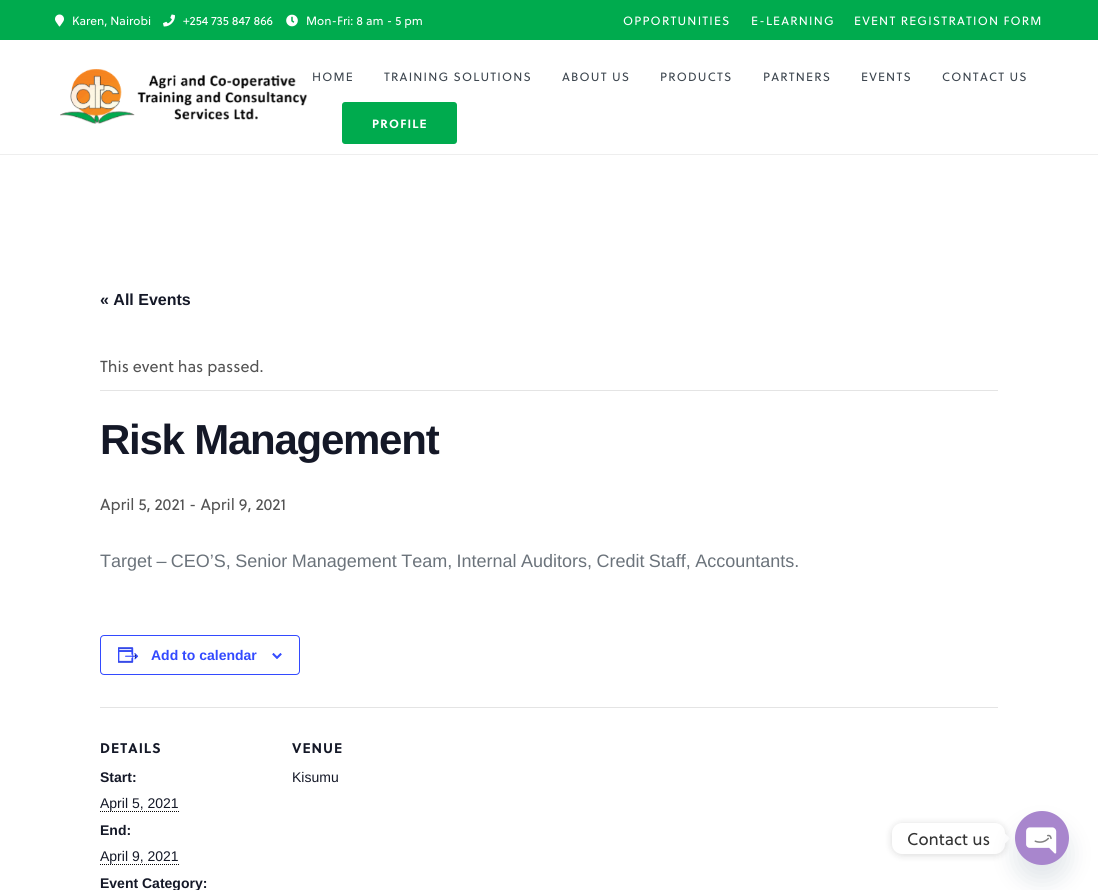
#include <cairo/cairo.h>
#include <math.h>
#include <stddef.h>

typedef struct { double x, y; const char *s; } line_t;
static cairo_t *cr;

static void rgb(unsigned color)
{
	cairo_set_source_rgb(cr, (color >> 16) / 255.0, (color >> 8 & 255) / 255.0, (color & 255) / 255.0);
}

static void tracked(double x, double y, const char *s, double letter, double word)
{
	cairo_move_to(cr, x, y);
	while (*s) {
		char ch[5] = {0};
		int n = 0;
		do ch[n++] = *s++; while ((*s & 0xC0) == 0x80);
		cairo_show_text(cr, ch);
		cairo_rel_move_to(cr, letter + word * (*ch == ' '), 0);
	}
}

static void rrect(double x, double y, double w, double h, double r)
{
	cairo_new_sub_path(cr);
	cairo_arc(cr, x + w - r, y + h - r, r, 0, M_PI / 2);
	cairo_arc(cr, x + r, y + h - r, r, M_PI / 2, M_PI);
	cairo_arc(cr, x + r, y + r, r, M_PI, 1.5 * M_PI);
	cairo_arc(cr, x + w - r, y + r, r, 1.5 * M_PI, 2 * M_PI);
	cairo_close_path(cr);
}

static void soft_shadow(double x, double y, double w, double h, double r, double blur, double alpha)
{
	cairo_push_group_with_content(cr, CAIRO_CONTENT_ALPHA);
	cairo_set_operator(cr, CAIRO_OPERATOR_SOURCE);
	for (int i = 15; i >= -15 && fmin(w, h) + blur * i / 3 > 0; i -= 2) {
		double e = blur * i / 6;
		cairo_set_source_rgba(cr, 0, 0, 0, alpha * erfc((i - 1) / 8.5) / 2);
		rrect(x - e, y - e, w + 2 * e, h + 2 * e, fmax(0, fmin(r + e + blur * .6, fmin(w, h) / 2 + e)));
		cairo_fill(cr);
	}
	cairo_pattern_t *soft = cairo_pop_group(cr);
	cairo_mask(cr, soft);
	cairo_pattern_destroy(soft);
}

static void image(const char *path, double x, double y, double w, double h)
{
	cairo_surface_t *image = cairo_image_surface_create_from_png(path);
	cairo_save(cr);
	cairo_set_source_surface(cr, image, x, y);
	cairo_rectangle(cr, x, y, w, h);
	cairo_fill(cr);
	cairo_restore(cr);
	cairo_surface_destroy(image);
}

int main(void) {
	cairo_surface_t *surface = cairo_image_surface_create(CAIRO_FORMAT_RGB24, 1098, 890);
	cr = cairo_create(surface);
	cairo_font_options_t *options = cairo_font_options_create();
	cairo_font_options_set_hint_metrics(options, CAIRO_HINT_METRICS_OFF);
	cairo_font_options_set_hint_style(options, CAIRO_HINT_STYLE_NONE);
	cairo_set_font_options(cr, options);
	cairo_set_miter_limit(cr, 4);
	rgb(0xffffff);
	cairo_paint(cr);
	rgb(0x00ab4e);
	cairo_rectangle(cr, 0, 0, 1098, 40);
	cairo_fill(cr);
	image("img/1.png", 55, 14, 9, 13);
	image("img/2.png", 163, 14, 12, 13);
	image("img/3.png", 286, 14, 12, 13);
	rgb(0xeeeeee);
	cairo_rectangle(cr, 0, 154, 1098, 1);
	cairo_fill(cr);
	image("img/4.png", 60, 69, 248, 55);
	rgb(0x00ab4e);
	rrect(342, 102, 115, 42, 3);
	cairo_fill(cr);
	rgb(0xe4e4e4);
	cairo_rectangle(cr, 100, 390, 898, 1);
	cairo_fill(cr);
	rrect(100.5, 635.5, 199, 39, 3.5);
	rgb(0x334aff);
	cairo_set_line_width(cr, 1);
	cairo_stroke(cr);
	image("img/5.png", 118, 647, 21, 16);
	image("img/6.png", 272, 653, 10, 6);
	rgb(0xe4e4e4);
	cairo_rectangle(cr, 100, 707, 898, 1);
	cairo_fill(cr);
	cairo_new_path(cr);
	cairo_move_to(cr, 100, 811.5);
	cairo_line_to(cr, 179, 811.5);
	rgb(0x0a0a0a);
	cairo_set_dash(cr, (double[]){1, 1}, 2, 0);
	cairo_stroke(cr);
	cairo_new_path(cr);
	cairo_move_to(cr, 100, 864.5);
	cairo_line_to(cr, 179, 864.5);
	cairo_stroke(cr);
	rgb(0x000000);
	soft_shadow(892, 824, 113, 31, 10, 4, 0.15);
	rgb(0xffffff);
	rrect(892, 823, 113, 31, 10);
	cairo_fill(cr);
	cairo_new_path(cr);
	cairo_move_to(cr, 1005, 843.5);
	cairo_line_to(cr, 1005, 833.5);
	cairo_line_to(cr, 1010, 838.5);
	cairo_close_path(cr);
	cairo_fill(cr);
	rgb(0x49687e);
	soft_shadow(1015, 827, 54, 54, 27, 12, 0.16);
	image("img/7.png", 1015, 811, 54, 54);
	cairo_select_font_face(cr, "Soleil", CAIRO_FONT_SLANT_NORMAL, CAIRO_FONT_WEIGHT_NORMAL);
	cairo_set_font_size(cr, 12);
	rgb(0xffffff);
	{
		static const line_t items[] = {
			{72, 25, "Karen, Nairobi"},
			{183, 25, "+254 735 847 866"},
			{306, 25, "Mon-Fri: 8 am - 5 pm"},
		};
		for (size_t i = 0; i < sizeof items / sizeof *items; i++) {
			cairo_move_to(cr, items[i].x, items[i].y);
			cairo_show_text(cr, items[i].s);
		}
	}
	{
		static const line_t items[] = {
			{623, 25, "OPPORTUNITIES"},
			{751, 25, "E-LEARNING"},
			{854, 25, "EVENT REGISTRATION FORM"},
		};
		for (size_t i = 0; i < sizeof items / sizeof *items; i++) {
			tracked(items[i].x, items[i].y, items[i].s, 1.2, 0);
		}
	}
	rgb(0x3d464f);
	{
		static const line_t items[] = {
			{312, 81, "HOME"},
			{384, 81, "TRAINING SOLUTIONS"},
			{562, 81, "ABOUT US"},
			{660, 81, "PRODUCTS"},
			{763, 81, "PARTNERS"},
			{861, 81, "EVENTS"},
			{942, 81, "CONTACT US"},
		};
		for (size_t i = 0; i < sizeof items / sizeof *items; i++) {
			tracked(items[i].x, items[i].y, items[i].s, 1.2, 0);
		}
	}
	cairo_select_font_face(cr, "Soleil", CAIRO_FONT_SLANT_NORMAL, CAIRO_FONT_WEIGHT_BOLD);
	rgb(0xffffff);
	tracked(372, 128, "PROFILE", 1.2, 0);
	cairo_select_font_face(cr, "Liberation Sans", CAIRO_FONT_SLANT_NORMAL, CAIRO_FONT_WEIGHT_BOLD);
	cairo_set_font_size(cr, 16);
	rgb(0x141827);
	cairo_move_to(cr, 100, 305);
	cairo_show_text(cr, "« All Events");
	cairo_select_font_face(cr, "Soleil", CAIRO_FONT_SLANT_NORMAL, CAIRO_FONT_WEIGHT_NORMAL);
	rgb(0x535353);
	cairo_move_to(cr, 100, 372);
	cairo_show_text(cr, "This event has passed.");
	cairo_select_font_face(cr, "Liberation Sans", CAIRO_FONT_SLANT_NORMAL, CAIRO_FONT_WEIGHT_BOLD);
	cairo_set_font_size(cr, 42);
	rgb(0x141827);
	tracked(100, 454, "Risk Management", -1.25, 0);
	cairo_select_font_face(cr, "Soleil", CAIRO_FONT_SLANT_NORMAL, CAIRO_FONT_WEIGHT_NORMAL);
	cairo_set_font_size(cr, 16);
	rgb(0x535353);
	cairo_move_to(cr, 100, 510);
	cairo_show_text(cr, "April 5, 2021 - April 9, 2021");
	cairo_select_font_face(cr, "Liberation Sans", CAIRO_FONT_SLANT_NORMAL, CAIRO_FONT_WEIGHT_NORMAL);
	cairo_set_font_size(cr, 18);
	rgb(0x6b737b);
	tracked(100, 567, "Target – CEO’S, Senior Management Team, Internal Auditors, Credit Staff, Accountants.", 0, -0.6);
	cairo_select_font_face(cr, "Liberation Sans", CAIRO_FONT_SLANT_NORMAL, CAIRO_FONT_WEIGHT_BOLD);
	cairo_set_font_size(cr, 14);
	rgb(0x334aff);
	cairo_move_to(cr, 151, 660);
	cairo_show_text(cr, "Add to calendar");
	cairo_select_font_face(cr, "Soleil", CAIRO_FONT_SLANT_NORMAL, CAIRO_FONT_WEIGHT_BOLD);
	rgb(0x141827);
	tracked(100, 753, "DETAILS", 1, 0);
	cairo_select_font_face(cr, "Liberation Sans", CAIRO_FONT_SLANT_NORMAL, CAIRO_FONT_WEIGHT_BOLD);
	cairo_move_to(cr, 100, 782);
	cairo_show_text(cr, "Start:");
	cairo_select_font_face(cr, "Liberation Sans", CAIRO_FONT_SLANT_NORMAL, CAIRO_FONT_WEIGHT_NORMAL);
	cairo_move_to(cr, 100, 808);
	cairo_show_text(cr, "April 5, 2021");
	cairo_select_font_face(cr, "Liberation Sans", CAIRO_FONT_SLANT_NORMAL, CAIRO_FONT_WEIGHT_BOLD);
	cairo_move_to(cr, 100, 835);
	cairo_show_text(cr, "End:");
	cairo_select_font_face(cr, "Liberation Sans", CAIRO_FONT_SLANT_NORMAL, CAIRO_FONT_WEIGHT_NORMAL);
	cairo_move_to(cr, 100, 861);
	cairo_show_text(cr, "April 9, 2021");
	cairo_select_font_face(cr, "Liberation Sans", CAIRO_FONT_SLANT_NORMAL, CAIRO_FONT_WEIGHT_BOLD);
	cairo_move_to(cr, 100, 888);
	cairo_show_text(cr, "Event Category:");
	cairo_select_font_face(cr, "Soleil", CAIRO_FONT_SLANT_NORMAL, CAIRO_FONT_WEIGHT_BOLD);
	tracked(292, 753, "VENUE", 1, 0);
	cairo_select_font_face(cr, "Liberation Sans", CAIRO_FONT_SLANT_NORMAL, CAIRO_FONT_WEIGHT_NORMAL);
	cairo_move_to(cr, 292, 782);
	cairo_show_text(cr, "Kisumu");
	cairo_select_font_face(cr, "Soleil", CAIRO_FONT_SLANT_NORMAL, CAIRO_FONT_WEIGHT_NORMAL);
	cairo_set_font_size(cr, 17);
	rgb(0x333333);
	cairo_move_to(cr, 907, 845);
	cairo_show_text(cr, "Contact us");
	cairo_surface_write_to_png(surface, "page.png");
	cairo_font_options_destroy(options);
	cairo_destroy(cr);
	cairo_surface_destroy(surface);
	return 0;
}
